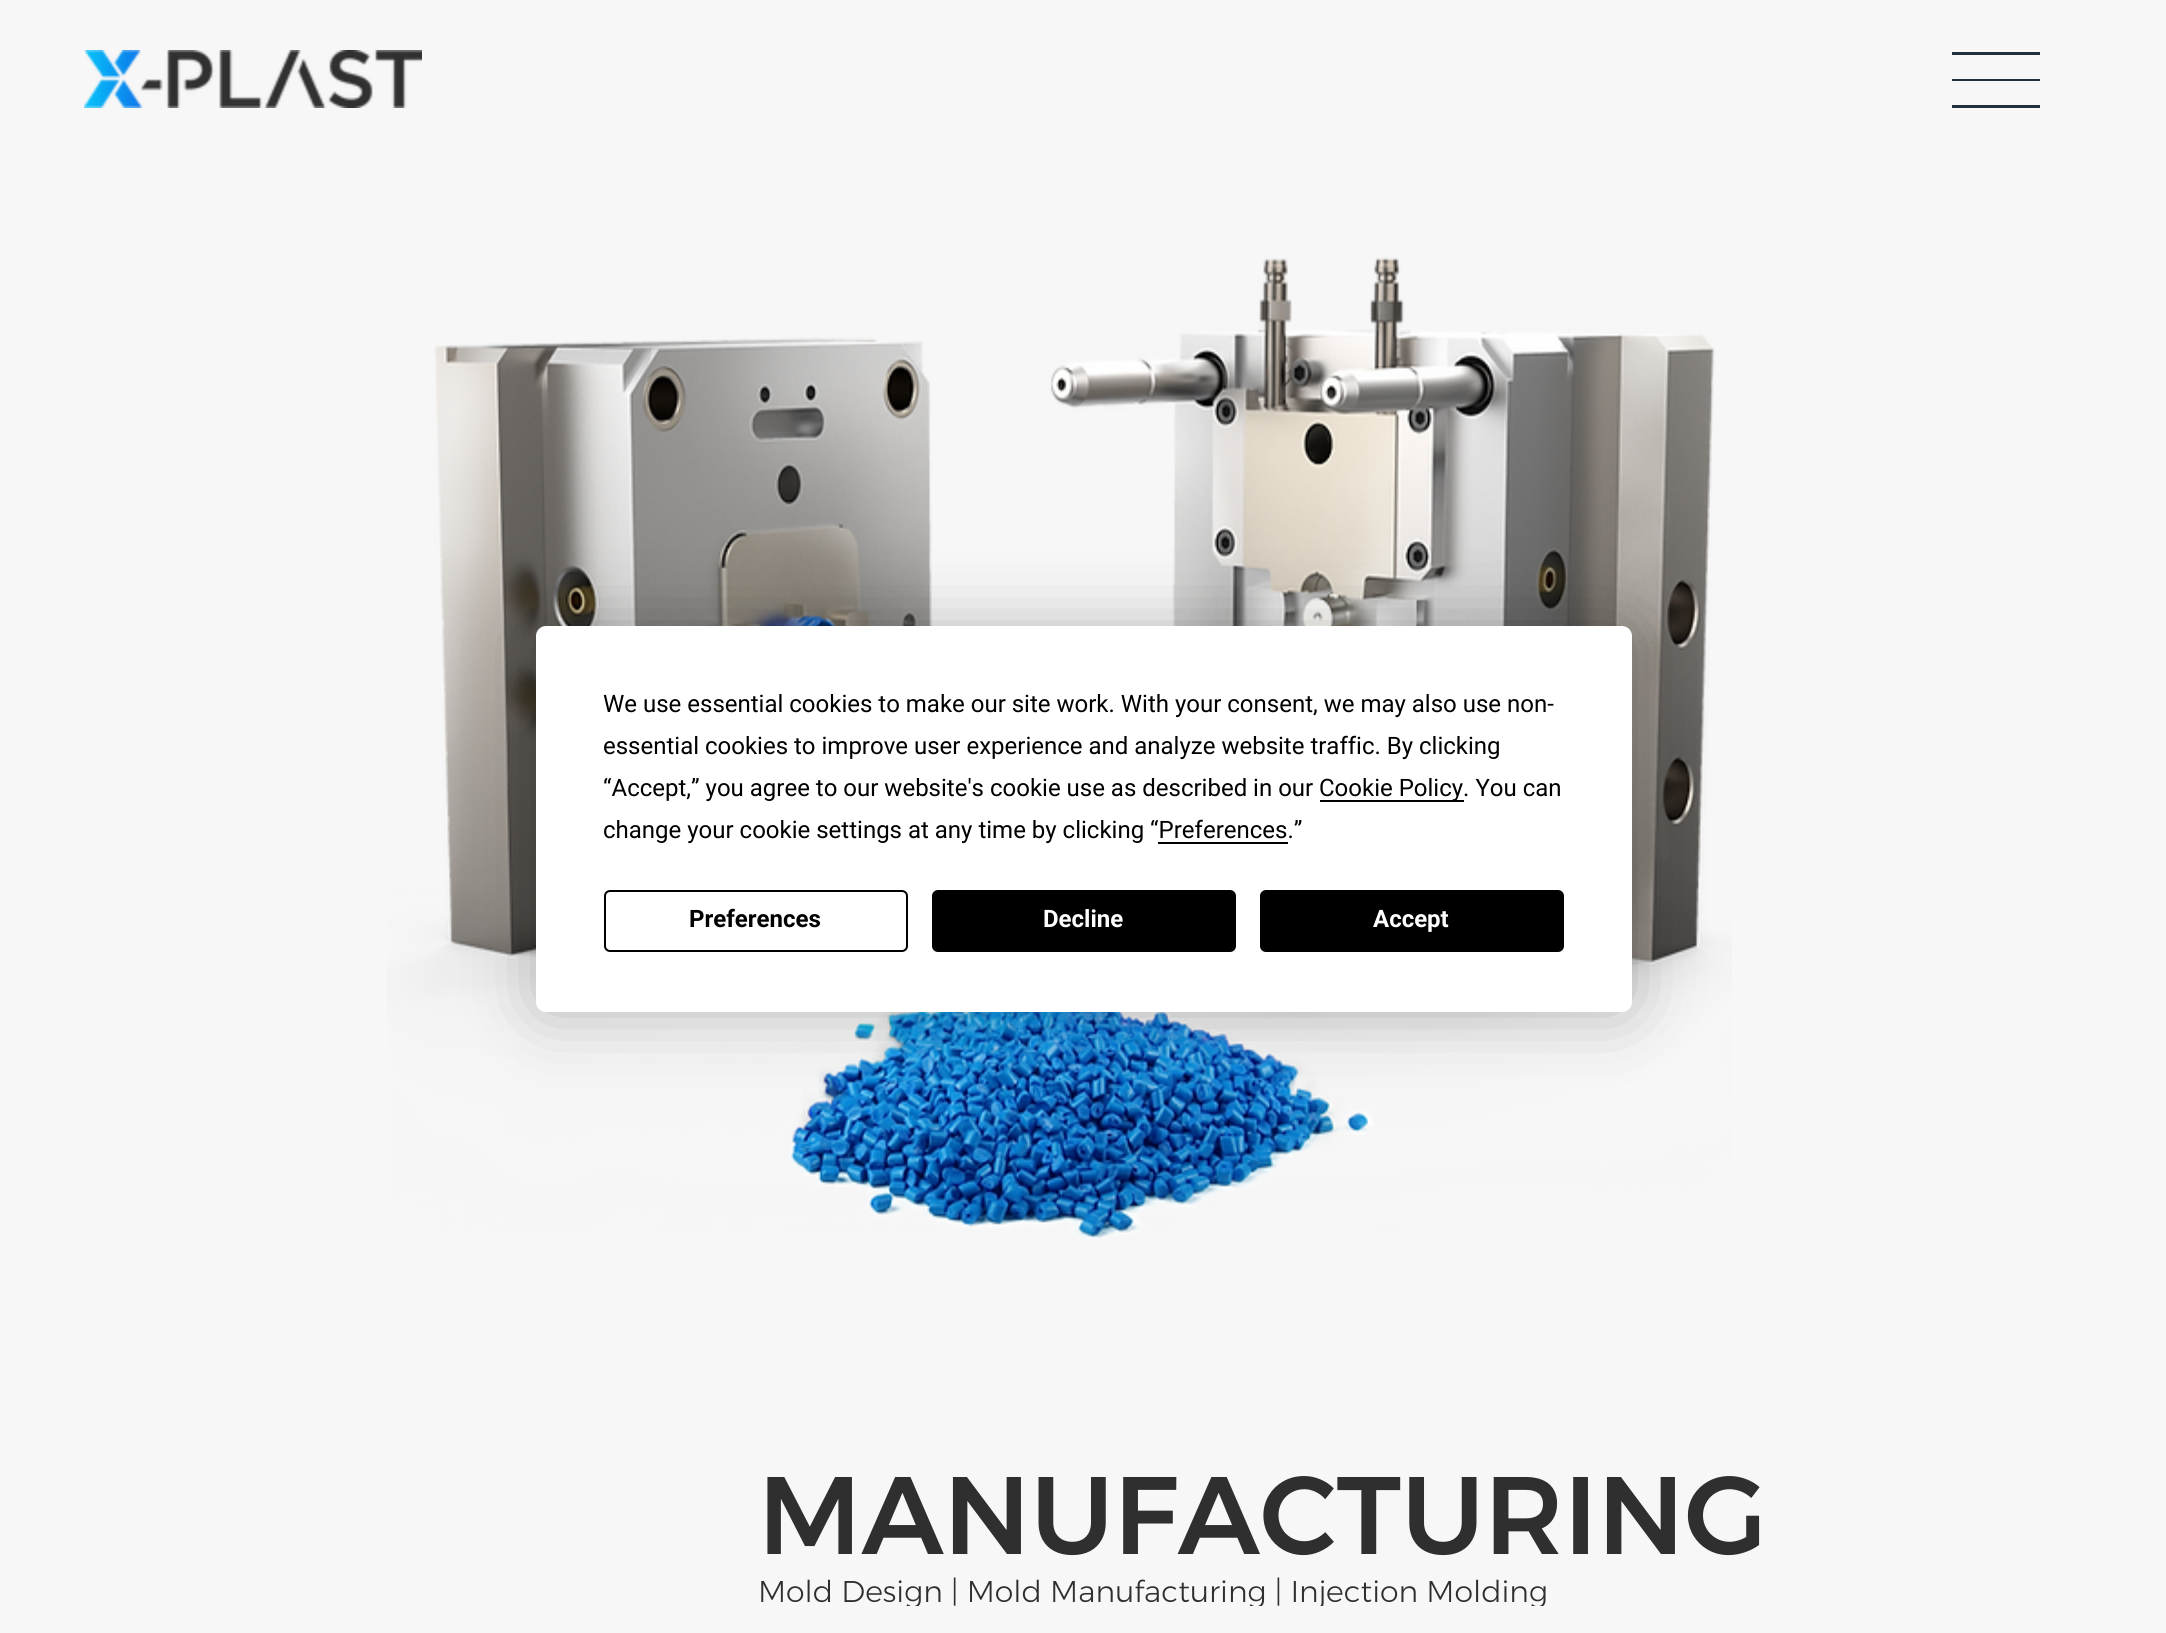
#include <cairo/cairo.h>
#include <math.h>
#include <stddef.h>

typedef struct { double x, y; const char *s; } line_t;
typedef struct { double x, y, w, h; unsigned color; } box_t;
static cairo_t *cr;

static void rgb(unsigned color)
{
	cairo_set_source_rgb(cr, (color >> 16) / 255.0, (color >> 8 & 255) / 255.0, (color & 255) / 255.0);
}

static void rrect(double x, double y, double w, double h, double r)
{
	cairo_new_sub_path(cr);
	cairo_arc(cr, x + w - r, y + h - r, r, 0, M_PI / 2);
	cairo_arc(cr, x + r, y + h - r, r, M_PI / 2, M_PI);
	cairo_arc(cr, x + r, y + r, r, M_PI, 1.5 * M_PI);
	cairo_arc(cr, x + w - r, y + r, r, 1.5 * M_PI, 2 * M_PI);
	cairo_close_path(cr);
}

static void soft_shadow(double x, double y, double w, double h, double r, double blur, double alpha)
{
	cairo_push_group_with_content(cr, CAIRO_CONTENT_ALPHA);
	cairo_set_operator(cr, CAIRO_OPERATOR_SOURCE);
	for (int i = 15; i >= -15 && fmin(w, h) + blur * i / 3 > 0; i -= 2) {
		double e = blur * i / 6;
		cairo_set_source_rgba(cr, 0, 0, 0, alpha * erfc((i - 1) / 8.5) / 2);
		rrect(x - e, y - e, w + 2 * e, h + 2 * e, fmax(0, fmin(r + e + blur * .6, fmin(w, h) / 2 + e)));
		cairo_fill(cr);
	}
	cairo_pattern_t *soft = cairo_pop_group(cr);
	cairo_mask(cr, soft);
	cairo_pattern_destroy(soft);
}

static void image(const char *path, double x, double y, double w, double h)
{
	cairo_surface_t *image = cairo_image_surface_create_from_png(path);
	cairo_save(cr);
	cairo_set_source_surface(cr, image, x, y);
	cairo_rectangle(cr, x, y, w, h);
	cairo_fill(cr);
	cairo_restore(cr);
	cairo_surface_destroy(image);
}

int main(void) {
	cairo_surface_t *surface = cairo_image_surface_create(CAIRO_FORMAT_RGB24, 2166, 1633);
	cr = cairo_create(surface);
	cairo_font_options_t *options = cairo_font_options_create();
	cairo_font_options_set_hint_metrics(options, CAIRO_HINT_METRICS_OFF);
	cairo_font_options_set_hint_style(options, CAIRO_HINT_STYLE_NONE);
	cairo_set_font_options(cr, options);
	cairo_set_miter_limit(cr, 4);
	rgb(0xf7f7f7);
	cairo_paint(cr);
	image("img/2.png", 387, 257, 1345, 982);
	rgb(0x000000);
	soft_shadow(536, 626, 1096, 386, 10, 35, 0.25);
	rgb(0xffffff);
	rrect(536, 626, 1096, 386, 10);
	cairo_fill(cr);
	rgb(0x000000);
	cairo_rectangle(cr, 1320, 800, 144, 2);
	cairo_fill(cr);
	cairo_rectangle(cr, 1158, 842, 130, 2);
	cairo_fill(cr);
	rrect(605, 891, 302, 60, 5);
	cairo_stroke(cr);
	rrect(933, 891, 302, 60, 5);
	cairo_fill_preserve(cr);
	cairo_stroke(cr);
	rrect(1261, 891, 302, 60, 5);
	cairo_fill_preserve(cr);
	cairo_stroke(cr);
	image("img/1.png", 84, 50, 338, 58);
	{
		static const box_t items[] = {
			{1952, 52, 88, 3, 0x20303c},
			{1952, 79, 88, 2, 0x20303c},
			{1952, 105, 88, 3, 0x20303c},
		};
		for (size_t i = 0; i < sizeof items / sizeof *items; i++) {
			rgb(items[i].color);
			cairo_rectangle(cr, items[i].x, items[i].y, items[i].w, items[i].h);
			cairo_fill(cr);
		}
	}
	cairo_select_font_face(cr, "Roboto", CAIRO_FONT_SLANT_NORMAL, CAIRO_FONT_WEIGHT_NORMAL);
	cairo_set_font_size(cr, 24);
	rgb(0x000000);
	{
		static const line_t items[] = {
			{603, 712, "We use essential cookies to make our site work. With your consent, we may also use non-"},
			{603, 754, "essential cookies to improve user experience and analyze website traffic. By clicking"},
			{603, 796, "“Accept,” you agree to our website's cookie use as described in our"},
			{1319, 796, "Cookie Policy. You can"},
			{603, 838, "change your cookie settings at any time by clicking “Preferences.”"},
		};
		for (size_t i = 0; i < sizeof items / sizeof *items; i++) {
			cairo_move_to(cr, items[i].x, items[i].y);
			cairo_show_text(cr, items[i].s);
		}
	}
	cairo_select_font_face(cr, "Roboto", CAIRO_FONT_SLANT_NORMAL, CAIRO_FONT_WEIGHT_BOLD);
	cairo_move_to(cr, 689, 927);
	cairo_show_text(cr, "Preferences");
	rgb(0xffffff);
	cairo_move_to(cr, 1043, 927);
	cairo_show_text(cr, "Decline");
	cairo_move_to(cr, 1373, 927);
	cairo_show_text(cr, "Accept");
	cairo_select_font_face(cr, "Montserrat Medium", CAIRO_FONT_SLANT_NORMAL, CAIRO_FONT_WEIGHT_NORMAL);
	cairo_set_font_size(cr, 110);
	rgb(0x2f2f30);
	cairo_move_to(cr, 758, 1554);
	cairo_show_text(cr, "MANUFACTURING");
	cairo_select_font_face(cr, "Montserrat Light", CAIRO_FONT_SLANT_NORMAL, CAIRO_FONT_WEIGHT_NORMAL);
	cairo_set_font_size(cr, 30);
	cairo_move_to(cr, 758, 1602);
	cairo_show_text(cr, "Mold Design | Mold Manufacturing | Injection Molding");
	rgb(0xf7f7f7);
	cairo_rectangle(cr, 907, 1606, 636, 2);
	cairo_fill(cr);
	cairo_surface_write_to_png(surface, "page.png");
	cairo_font_options_destroy(options);
	cairo_destroy(cr);
	cairo_surface_destroy(surface);
	return 0;
}
